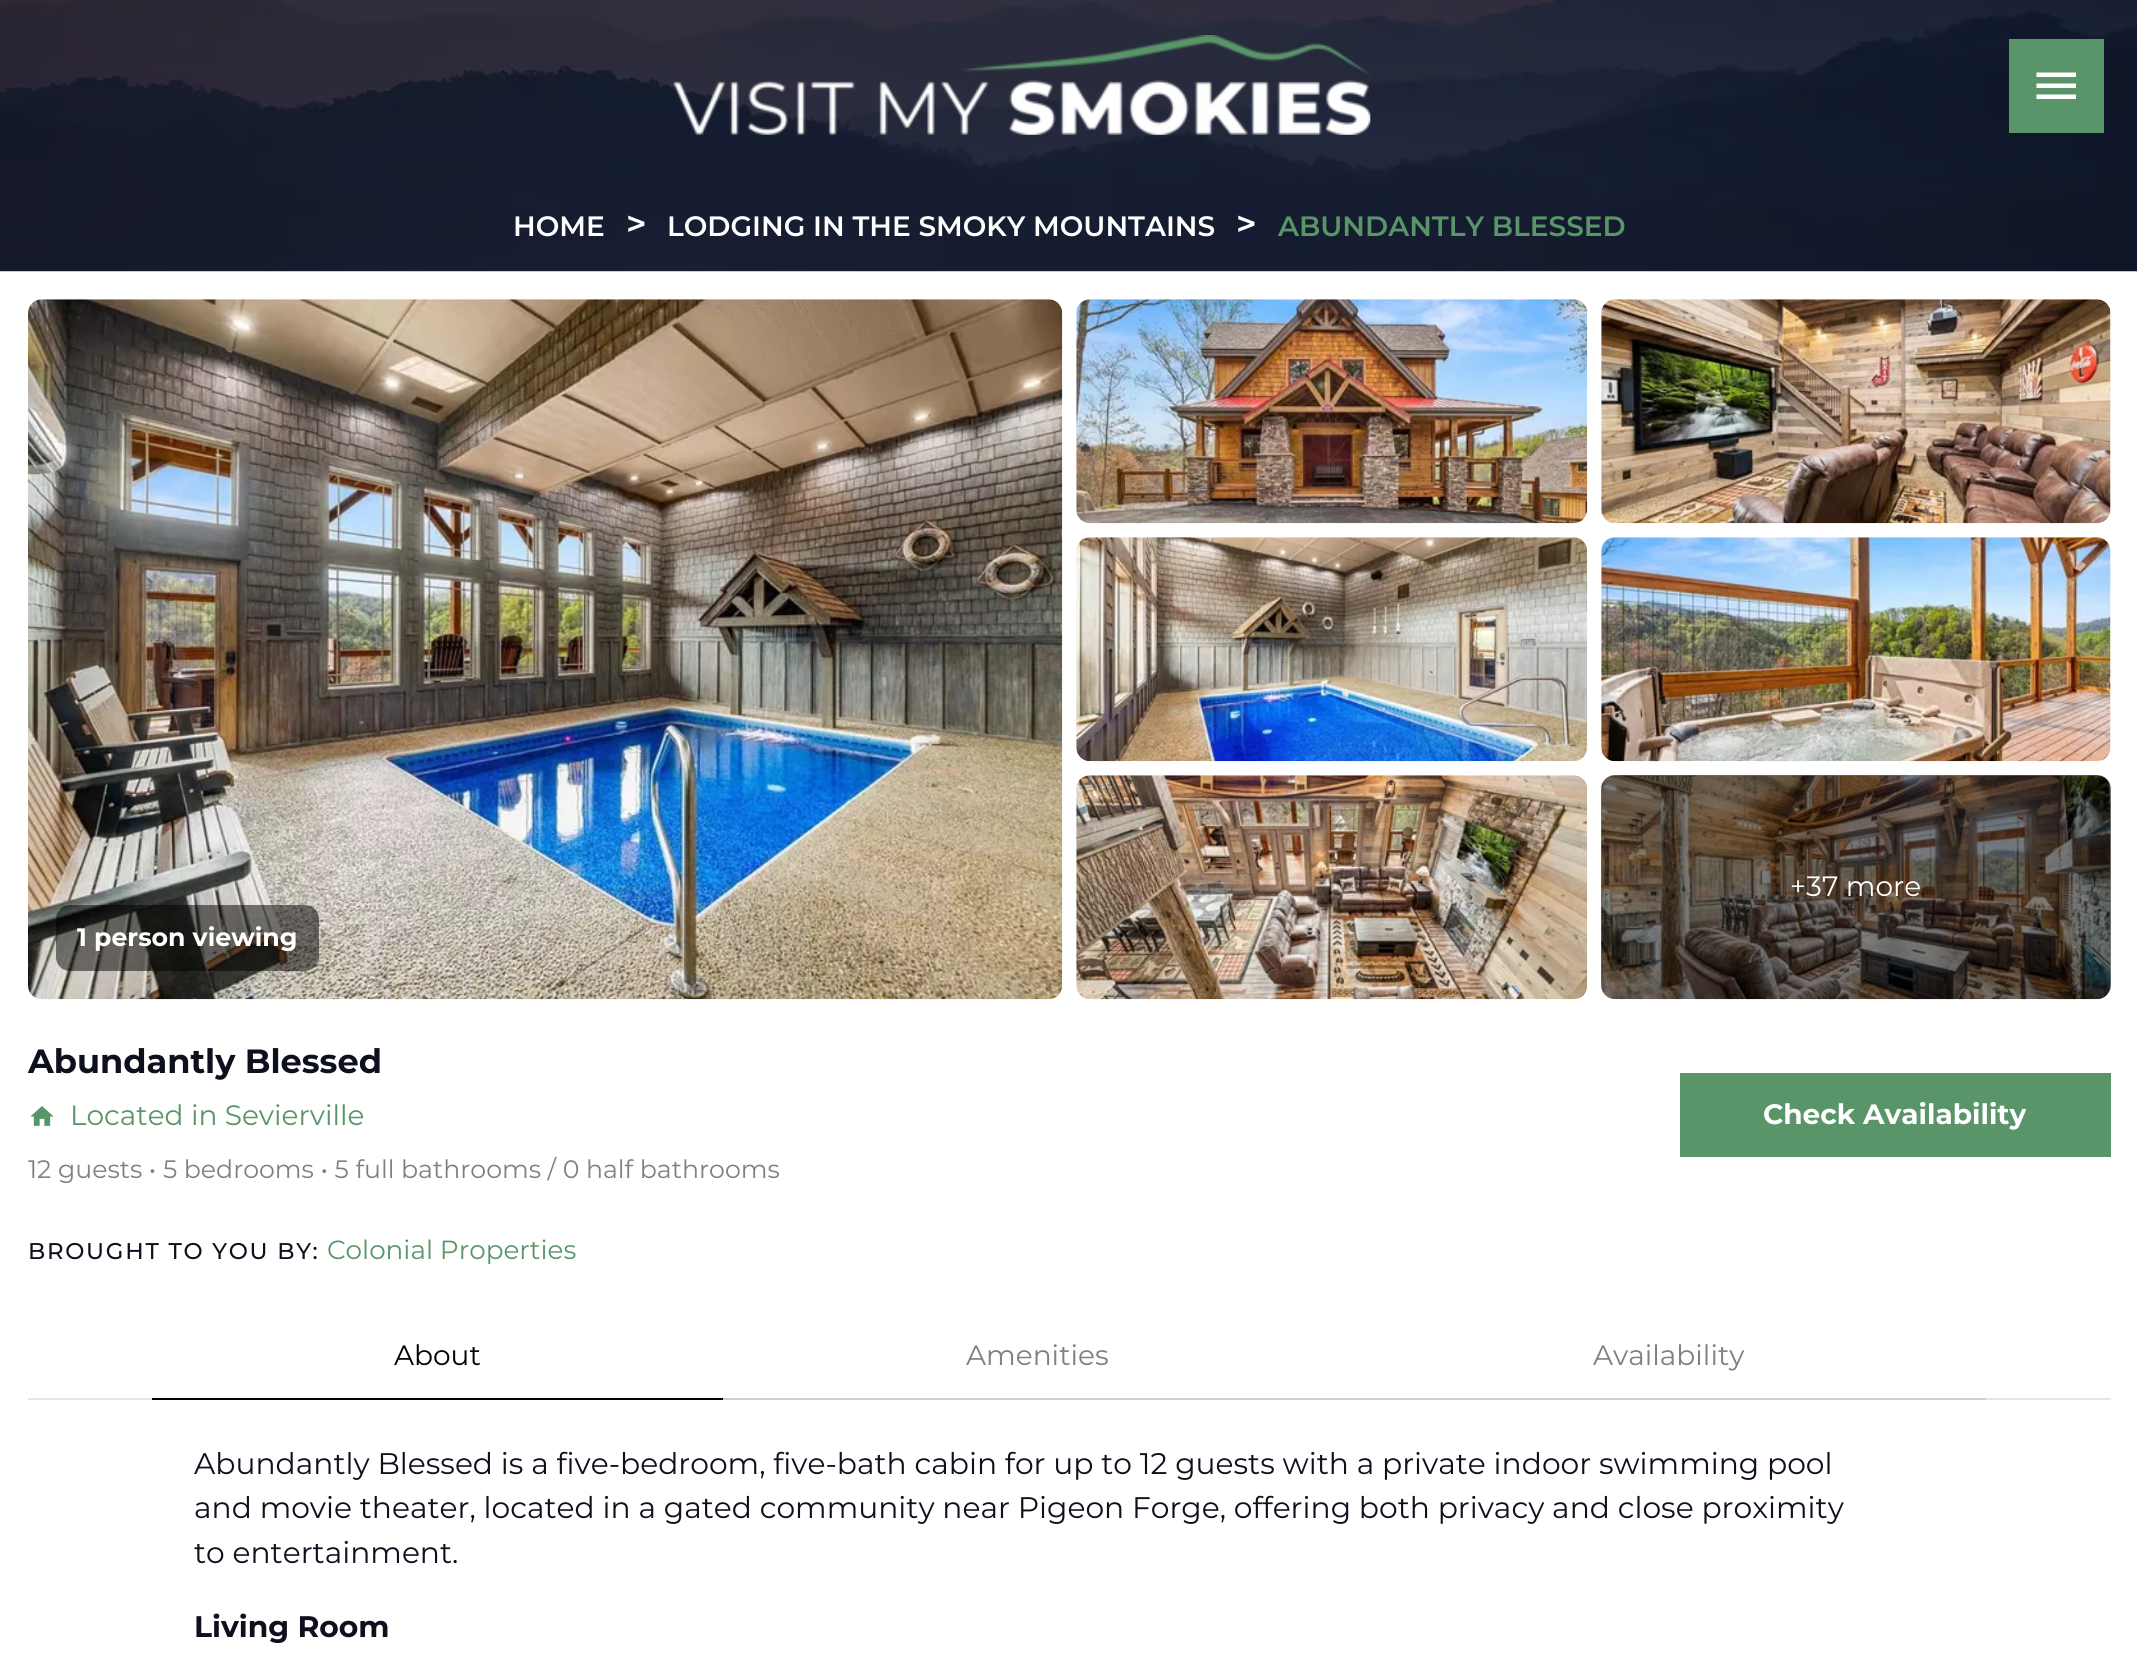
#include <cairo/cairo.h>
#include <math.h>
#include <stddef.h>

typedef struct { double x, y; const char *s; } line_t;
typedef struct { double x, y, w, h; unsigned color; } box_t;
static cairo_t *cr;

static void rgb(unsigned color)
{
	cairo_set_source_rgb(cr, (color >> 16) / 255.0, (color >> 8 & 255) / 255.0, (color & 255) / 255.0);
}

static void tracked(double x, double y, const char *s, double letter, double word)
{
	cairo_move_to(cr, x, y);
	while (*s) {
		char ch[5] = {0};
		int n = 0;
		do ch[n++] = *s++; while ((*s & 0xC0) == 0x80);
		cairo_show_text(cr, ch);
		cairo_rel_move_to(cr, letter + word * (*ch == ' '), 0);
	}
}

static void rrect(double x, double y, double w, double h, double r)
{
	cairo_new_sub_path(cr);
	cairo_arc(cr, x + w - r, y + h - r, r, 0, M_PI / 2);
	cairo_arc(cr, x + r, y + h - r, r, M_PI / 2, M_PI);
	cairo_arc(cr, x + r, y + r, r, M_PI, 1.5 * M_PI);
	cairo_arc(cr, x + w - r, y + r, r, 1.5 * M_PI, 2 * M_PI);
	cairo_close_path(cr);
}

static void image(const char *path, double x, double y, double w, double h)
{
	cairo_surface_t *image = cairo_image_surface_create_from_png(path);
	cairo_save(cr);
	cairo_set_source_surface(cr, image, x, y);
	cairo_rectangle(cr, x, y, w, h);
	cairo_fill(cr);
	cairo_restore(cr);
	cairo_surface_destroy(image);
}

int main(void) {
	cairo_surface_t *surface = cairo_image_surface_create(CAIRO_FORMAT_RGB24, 2137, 1679);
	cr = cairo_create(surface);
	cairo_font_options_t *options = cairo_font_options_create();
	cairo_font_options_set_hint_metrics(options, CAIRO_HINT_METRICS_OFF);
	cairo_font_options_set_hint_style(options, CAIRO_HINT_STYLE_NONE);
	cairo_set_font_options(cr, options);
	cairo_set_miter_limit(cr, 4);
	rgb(0xffffff);
	cairo_paint(cr);
	image("img/2.png", 0, 0, 2137, 272);
	image("img/1.png", 673, 35, 698, 100);
	rgb(0x599568);
	cairo_rectangle(cr, 2009, 39, 95, 94);
	cairo_fill(cr);
	rgb(0xffffff);
	cairo_new_path(cr);
	cairo_move_to(cr, 2036.5, 72.5);
	cairo_line_to(cr, 2076, 72.5);
	cairo_line_to(cr, 2076, 77);
	cairo_line_to(cr, 2036.5, 77);
	cairo_close_path(cr);
	cairo_move_to(cr, 2036.5, 88);
	cairo_line_to(cr, 2036.5, 83.5);
	cairo_line_to(cr, 2076, 83.5);
	cairo_line_to(cr, 2076, 88);
	cairo_close_path(cr);
	cairo_move_to(cr, 2036.5, 99);
	cairo_line_to(cr, 2036.5, 94.5);
	cairo_line_to(cr, 2076, 94.5);
	cairo_line_to(cr, 2076, 99);
	cairo_close_path(cr);
	cairo_fill(cr);
	image("img/3.png", 1076, 299, 512, 225);
	image("img/4.png", 1601, 299, 510, 225);
	image("img/5.png", 1076, 537, 512, 225);
	image("img/6.png", 1601, 537, 510, 225);
	image("img/7.png", 1076, 775, 512, 225);
	image("img/8.png", 1601, 775, 510, 225);
	cairo_set_source_rgba(cr, 0, 0, 0, 0.5);
	rrect(1601, 775, 510, 224, 14);
	cairo_fill(cr);
	image("img/9.png", 28, 299, 1035, 701);
	rrect(56, 905, 263, 66, 14);
	cairo_fill(cr);
	image("img/10.png", 30, 1106, 24, 20);
	{
		static const box_t items[] = {
			{1680, 1073, 431, 84, 0x599568},
			{28, 1398, 2083, 2, 0xe6e6e6},
			{152, 1398, 571, 2, 0x000000},
			{723, 1398, 1263, 2, 0xcfcfcf},
		};
		for (size_t i = 0; i < sizeof items / sizeof *items; i++) {
			rgb(items[i].color);
			cairo_rectangle(cr, items[i].x, items[i].y, items[i].w, items[i].h);
			cairo_fill(cr);
		}
	}
	cairo_select_font_face(cr, "Montserrat SemiBold", CAIRO_FONT_SLANT_NORMAL, CAIRO_FONT_WEIGHT_NORMAL);
	cairo_set_font_size(cr, 28);
	rgb(0xffffff);
	cairo_move_to(cr, 513, 236);
	cairo_show_text(cr, "HOME");
	cairo_set_font_size(cr, 35);
	cairo_move_to(cr, 626, 236);
	cairo_show_text(cr, ">");
	cairo_set_font_size(cr, 28);
	cairo_move_to(cr, 667, 236);
	cairo_show_text(cr, "LODGING IN THE SMOKY MOUNTAINS");
	cairo_set_font_size(cr, 35);
	cairo_move_to(cr, 1236, 236);
	cairo_show_text(cr, ">");
	cairo_set_font_size(cr, 28);
	rgb(0x599568);
	cairo_move_to(cr, 1278, 236);
	cairo_show_text(cr, "ABUNDANTLY BLESSED");
	cairo_select_font_face(cr, "Montserrat", CAIRO_FONT_SLANT_NORMAL, CAIRO_FONT_WEIGHT_NORMAL);
	rgb(0xffffff);
	cairo_move_to(cr, 1790, 896);
	cairo_show_text(cr, "+37 more");
	cairo_select_font_face(cr, "Montserrat", CAIRO_FONT_SLANT_NORMAL, CAIRO_FONT_WEIGHT_BOLD);
	cairo_set_font_size(cr, 25.2);
	cairo_move_to(cr, 77, 946);
	cairo_show_text(cr, "1 person viewing");
	cairo_set_font_size(cr, 33.6);
	rgb(0x0f101d);
	cairo_move_to(cr, 28, 1073);
	cairo_show_text(cr, "Abundantly Blessed");
	cairo_select_font_face(cr, "Montserrat", CAIRO_FONT_SLANT_NORMAL, CAIRO_FONT_WEIGHT_NORMAL);
	cairo_set_font_size(cr, 28);
	rgb(0x599568);
	cairo_move_to(cr, 70, 1125);
	cairo_show_text(cr, "Located in Sevierville");
	cairo_set_font_size(cr, 25.2);
	rgb(0x808080);
	cairo_move_to(cr, 28, 1178);
	cairo_show_text(cr, "12 guests • 5 bedrooms • 5 full bathrooms / 0 half bathrooms");
	cairo_select_font_face(cr, "Montserrat", CAIRO_FONT_SLANT_NORMAL, CAIRO_FONT_WEIGHT_BOLD);
	cairo_set_font_size(cr, 28);
	rgb(0xffffff);
	cairo_move_to(cr, 1763, 1124);
	cairo_show_text(cr, "Check Availability");
	cairo_select_font_face(cr, "Montserrat Medium", CAIRO_FONT_SLANT_NORMAL, CAIRO_FONT_WEIGHT_NORMAL);
	cairo_set_font_size(cr, 22.75);
	rgb(0x0f101d);
	tracked(28, 1259, "BROUGHT TO YOU BY:", 1.75, 0);
	cairo_select_font_face(cr, "Montserrat", CAIRO_FONT_SLANT_NORMAL, CAIRO_FONT_WEIGHT_NORMAL);
	cairo_set_font_size(cr, 26.25);
	rgb(0x599568);
	cairo_move_to(cr, 327, 1259);
	cairo_show_text(cr, "Colonial Properties");
	cairo_set_font_size(cr, 28);
	rgb(0x000000);
	cairo_move_to(cr, 394, 1365);
	cairo_show_text(cr, "About");
	rgb(0x808080);
	cairo_move_to(cr, 966, 1365);
	cairo_show_text(cr, "Amenities");
	cairo_move_to(cr, 1593, 1365);
	cairo_show_text(cr, "Availability");
	cairo_set_font_size(cr, 29.75);
	rgb(0x0f101d);
	{
		static const line_t items[] = {
			{194, 1474, "Abundantly Blessed is a five-bedroom, five-bath cabin for up to 12 guests with a private indoor swimming pool"},
			{194, 1518, "and movie theater, located in a gated community near Pigeon Forge, offering both privacy and close proximity"},
			{194, 1563, "to entertainment."},
		};
		for (size_t i = 0; i < sizeof items / sizeof *items; i++) {
			cairo_move_to(cr, items[i].x, items[i].y);
			cairo_show_text(cr, items[i].s);
		}
	}
	cairo_select_font_face(cr, "Montserrat", CAIRO_FONT_SLANT_NORMAL, CAIRO_FONT_WEIGHT_BOLD);
	cairo_move_to(cr, 194, 1637);
	cairo_show_text(cr, "Living Room");
	cairo_surface_write_to_png(surface, "page.png");
	cairo_font_options_destroy(options);
	cairo_destroy(cr);
	cairo_surface_destroy(surface);
	return 0;
}
